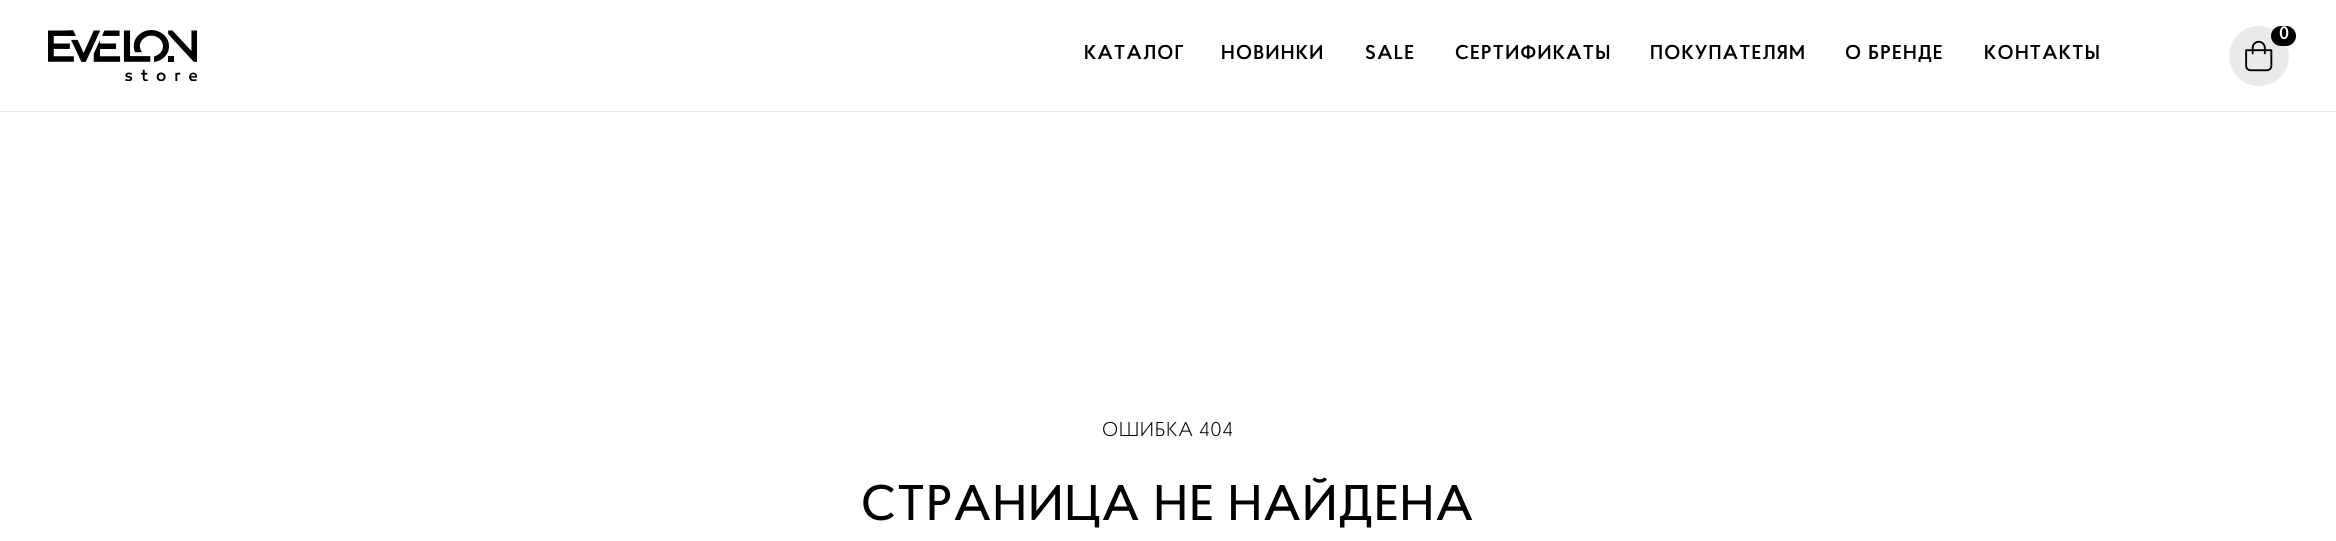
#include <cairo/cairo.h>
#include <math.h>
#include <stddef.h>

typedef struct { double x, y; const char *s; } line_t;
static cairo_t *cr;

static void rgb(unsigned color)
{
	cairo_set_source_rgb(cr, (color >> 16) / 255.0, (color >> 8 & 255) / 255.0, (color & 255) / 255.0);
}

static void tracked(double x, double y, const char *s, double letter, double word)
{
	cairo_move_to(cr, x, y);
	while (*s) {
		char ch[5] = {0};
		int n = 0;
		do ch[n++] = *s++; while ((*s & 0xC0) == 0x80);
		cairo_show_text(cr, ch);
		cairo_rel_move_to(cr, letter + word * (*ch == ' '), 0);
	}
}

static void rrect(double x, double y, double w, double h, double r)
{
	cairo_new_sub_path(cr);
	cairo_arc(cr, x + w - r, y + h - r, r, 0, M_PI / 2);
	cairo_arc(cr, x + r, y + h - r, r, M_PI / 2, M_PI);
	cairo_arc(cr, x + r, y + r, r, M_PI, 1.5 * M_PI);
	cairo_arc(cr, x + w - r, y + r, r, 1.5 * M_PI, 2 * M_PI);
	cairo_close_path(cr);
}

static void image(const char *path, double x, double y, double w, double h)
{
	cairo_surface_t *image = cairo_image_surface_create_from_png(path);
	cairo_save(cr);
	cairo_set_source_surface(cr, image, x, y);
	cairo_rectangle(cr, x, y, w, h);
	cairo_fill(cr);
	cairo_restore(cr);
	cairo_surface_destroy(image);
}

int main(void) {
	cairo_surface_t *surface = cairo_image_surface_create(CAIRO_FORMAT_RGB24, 2336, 541);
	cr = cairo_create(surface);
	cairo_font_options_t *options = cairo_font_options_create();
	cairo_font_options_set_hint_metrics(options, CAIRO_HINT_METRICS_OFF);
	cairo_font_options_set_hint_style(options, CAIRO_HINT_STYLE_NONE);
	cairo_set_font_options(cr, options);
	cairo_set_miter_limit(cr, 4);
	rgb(0xffffff);
	cairo_paint(cr);
	image("img/1.png", 2229, 26, 60, 60);
	image("img/2.png", 48, 30, 149, 51);
	rgb(0x000000);
	rrect(2271, 26, 25, 20, 10);
	cairo_fill(cr);
	rgb(0xe6e6e6);
	cairo_rectangle(cr, 0, 111, 2336, 1);
	cairo_fill(cr);
	cairo_select_font_face(cr, "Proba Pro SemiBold", CAIRO_FONT_SLANT_NORMAL, CAIRO_FONT_WEIGHT_NORMAL);
	cairo_set_font_size(cr, 20);
	rgb(0x000000);
	{
		static const line_t items[] = {
			{1084, 59, "КАТАЛОГ"},
			{1221, 59, "НОВИНКИ"},
			{1365, 59, "SALE"},
			{1455, 59, "СЕРТИФИКАТЫ"},
			{1650, 59, "ПОКУПАТЕЛЯМ"},
			{1845, 59, "О БРЕНДЕ"},
			{1984, 59, "КОНТАКТЫ"},
		};
		for (size_t i = 0; i < sizeof items / sizeof *items; i++) {
			tracked(items[i].x, items[i].y, items[i].s, 1.25, 0);
		}
	}
	cairo_set_font_size(cr, 18);
	rgb(0xffffff);
	cairo_move_to(cr, 2279, 39);
	cairo_show_text(cr, "0");
	cairo_select_font_face(cr, "Proba Pro Light", CAIRO_FONT_SLANT_NORMAL, CAIRO_FONT_WEIGHT_NORMAL);
	cairo_set_font_size(cr, 20);
	rgb(0x000000);
	tracked(1102, 436, "ОШИБКА 404", 0.6, 0);
	cairo_select_font_face(cr, "Proba Pro Medium", CAIRO_FONT_SLANT_NORMAL, CAIRO_FONT_WEIGHT_NORMAL);
	cairo_set_font_size(cr, 50);
	tracked(861, 520, "СТРАНИЦА НЕ НАЙДЕНА", 1.25, 0);
	cairo_surface_write_to_png(surface, "page.png");
	cairo_font_options_destroy(options);
	cairo_destroy(cr);
	cairo_surface_destroy(surface);
	return 0;
}
